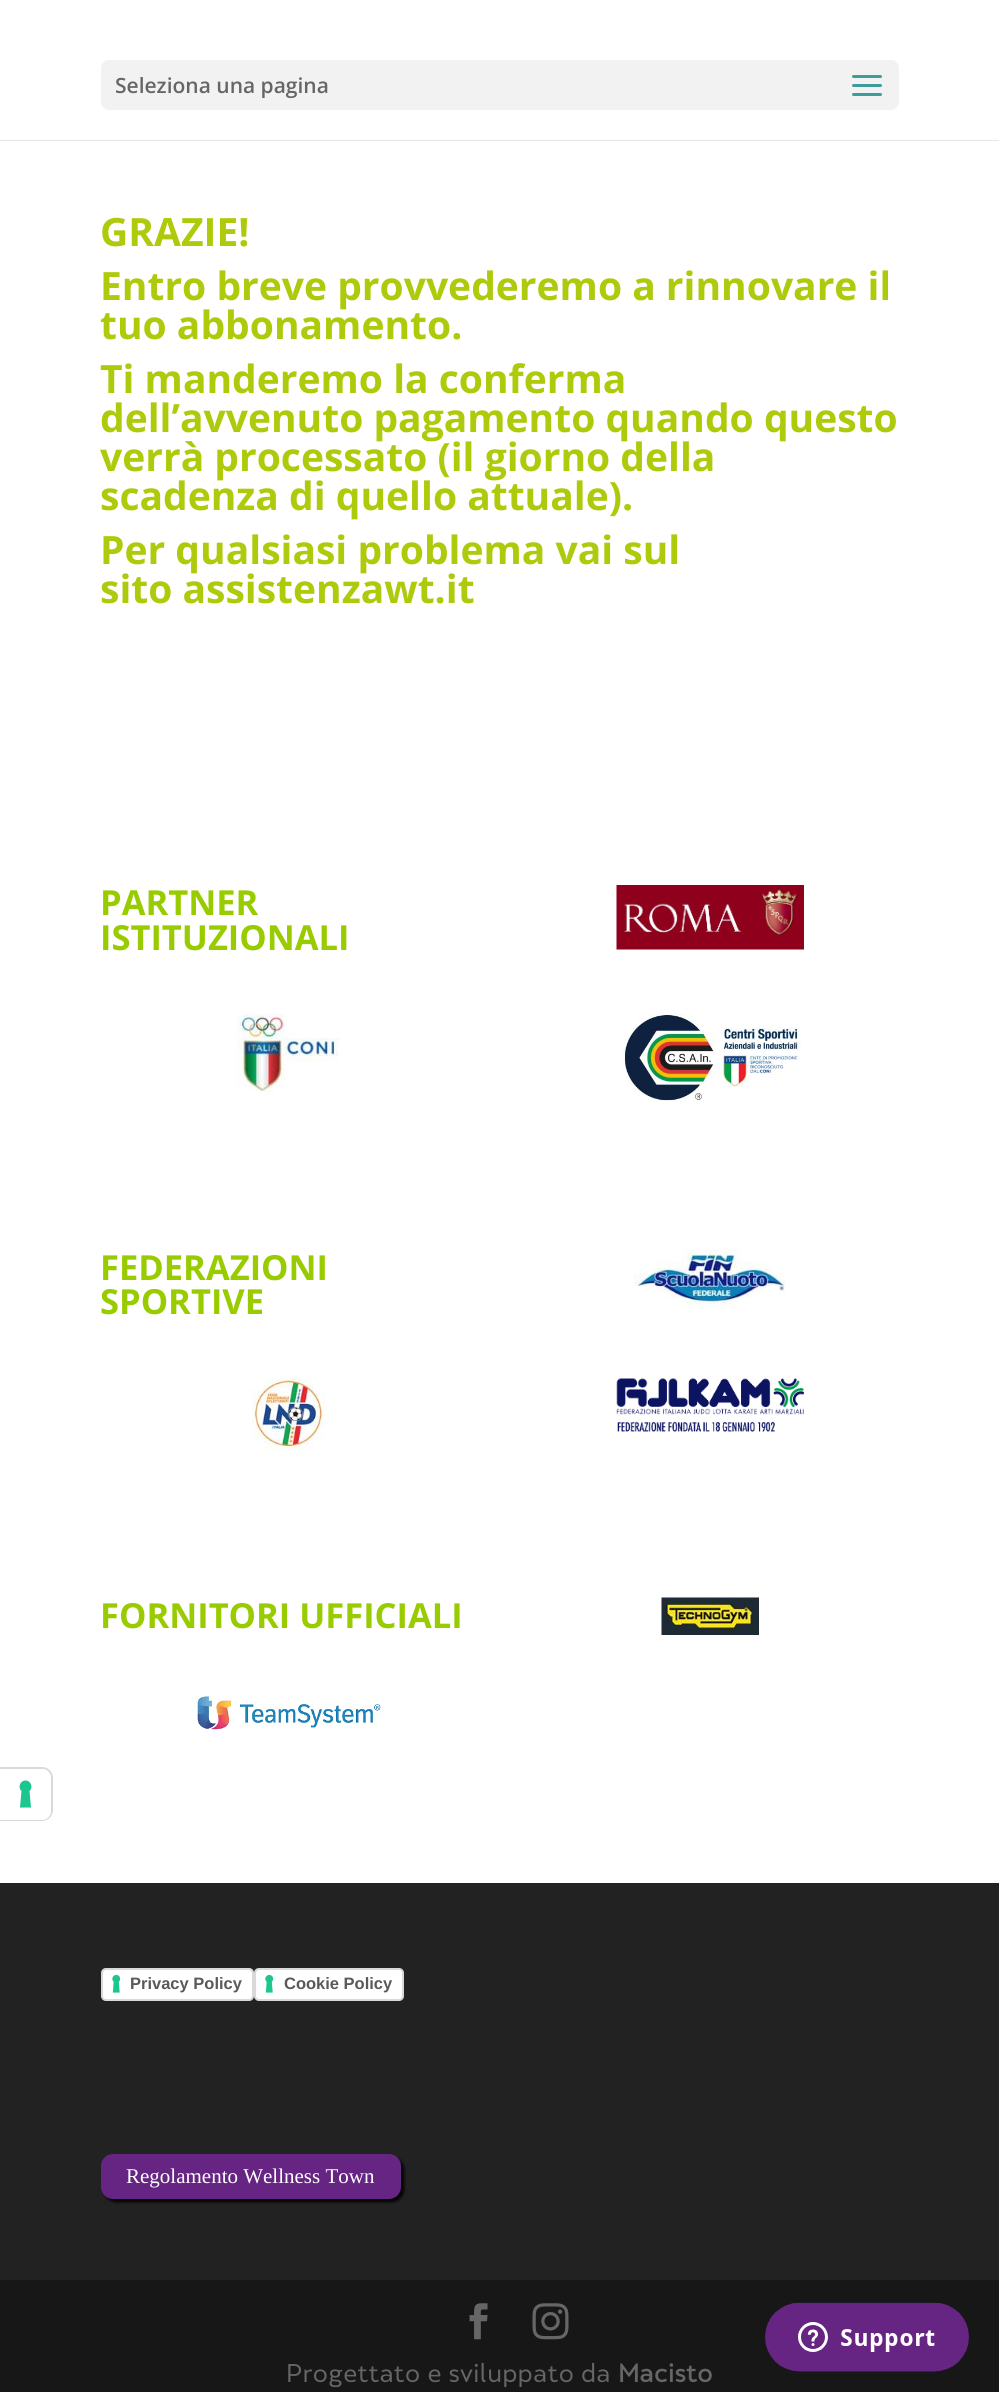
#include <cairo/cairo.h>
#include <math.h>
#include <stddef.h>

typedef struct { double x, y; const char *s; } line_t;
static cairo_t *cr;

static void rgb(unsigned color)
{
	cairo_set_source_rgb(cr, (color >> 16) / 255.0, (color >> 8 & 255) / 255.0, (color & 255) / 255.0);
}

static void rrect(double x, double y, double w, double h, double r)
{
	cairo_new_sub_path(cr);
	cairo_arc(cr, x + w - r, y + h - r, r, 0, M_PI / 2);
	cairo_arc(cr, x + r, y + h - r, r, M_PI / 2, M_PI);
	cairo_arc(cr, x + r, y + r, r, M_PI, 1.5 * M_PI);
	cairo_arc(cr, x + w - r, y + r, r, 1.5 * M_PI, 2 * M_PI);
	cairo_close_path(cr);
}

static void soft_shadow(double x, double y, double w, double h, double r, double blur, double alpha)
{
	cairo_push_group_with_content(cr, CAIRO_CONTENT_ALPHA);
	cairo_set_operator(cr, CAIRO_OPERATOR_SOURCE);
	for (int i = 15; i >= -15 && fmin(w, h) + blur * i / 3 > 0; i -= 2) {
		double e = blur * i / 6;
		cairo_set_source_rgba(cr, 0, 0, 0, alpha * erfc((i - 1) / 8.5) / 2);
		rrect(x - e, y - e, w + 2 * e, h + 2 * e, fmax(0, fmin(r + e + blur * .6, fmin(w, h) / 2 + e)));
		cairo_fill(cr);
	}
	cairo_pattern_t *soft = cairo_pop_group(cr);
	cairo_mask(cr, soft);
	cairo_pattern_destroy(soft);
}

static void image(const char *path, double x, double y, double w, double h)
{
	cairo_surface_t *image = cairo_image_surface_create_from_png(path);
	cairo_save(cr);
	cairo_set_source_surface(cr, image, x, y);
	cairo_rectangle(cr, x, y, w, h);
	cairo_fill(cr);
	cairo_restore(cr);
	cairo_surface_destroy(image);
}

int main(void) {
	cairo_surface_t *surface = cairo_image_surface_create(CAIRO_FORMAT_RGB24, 999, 2392);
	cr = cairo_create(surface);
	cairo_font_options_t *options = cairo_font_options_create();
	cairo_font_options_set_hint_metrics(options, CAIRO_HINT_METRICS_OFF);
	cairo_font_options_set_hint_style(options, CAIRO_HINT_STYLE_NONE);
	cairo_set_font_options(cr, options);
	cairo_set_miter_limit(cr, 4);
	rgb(0xffffff);
	cairo_paint(cr);
	cairo_new_path(cr);
	cairo_move_to(cr, 0, 1768);
	cairo_line_to(cr, 42, 1768);
	cairo_curve_to(cr, 47.5, 1768, 52, 1772.5, 52, 1778);
	cairo_line_to(cr, 52, 1810);
	cairo_curve_to(cr, 52, 1815.5, 47.5, 1820, 42, 1820);
	cairo_line_to(cr, 0, 1820);
	cairo_close_path(cr);
	rgb(0xd9d9d9);
	cairo_stroke(cr);
	rgb(0xffffff);
	cairo_new_path(cr);
	cairo_move_to(cr, 0, 1769);
	cairo_line_to(cr, 42, 1769);
	cairo_curve_to(cr, 47, 1769, 51, 1773, 51, 1778);
	cairo_line_to(cr, 51, 1811);
	cairo_curve_to(cr, 51, 1816, 47, 1820, 42, 1820);
	cairo_line_to(cr, 0, 1820);
	cairo_close_path(cr);
	cairo_fill(cr);
	rgb(0x1cc691);
	cairo_set_fill_rule(cr, CAIRO_FILL_RULE_EVEN_ODD);
	cairo_new_path(cr);
	cairo_move_to(cr, 25.5, 1780.5);
	cairo_curve_to(cr, 31, 1780.5, 33.5, 1787.5, 29.5, 1791);
	cairo_line_to(cr, 31, 1807.5);
	cairo_line_to(cr, 20, 1807.5);
	cairo_line_to(cr, 21.5, 1791);
	cairo_curve_to(cr, 17.5, 1787.5, 20, 1780.5, 25.5, 1780.5);
	cairo_close_path(cr);
	cairo_fill(cr);
	rgb(0xe6e6e6);
	cairo_rectangle(cr, 0, 140, 999, 1);
	cairo_fill(cr);
	rgb(0xf2f2f2);
	rrect(101, 60, 798, 50, 8);
	cairo_fill(cr);
	image("img/1.png", 852, 75, 30, 21);
	image("img/2.png", 616, 885, 188, 65);
	image("img/3.png", 237, 1014, 102, 80);
	image("img/4.png", 622, 1014, 179, 89);
	image("img/5.png", 634, 1249, 152, 59);
	image("img/6.png", 252, 1378, 73, 73);
	image("img/7.png", 616, 1378, 188, 54);
	image("img/8.png", 661, 1597, 98, 38);
	image("img/9.png", 196, 1695, 185, 35);
	rgb(0x222222);
	cairo_rectangle(cr, 0, 1883, 999, 397);
	cairo_fill(cr);
	rgb(0xffffff);
	rrect(101, 1968, 153, 33, 5);
	cairo_fill(cr);
	image("img/10.png", 112, 1974, 9, 19);
	rrect(102, 1969, 151, 31, 4);
	cairo_set_source_rgba(cr, 0, 0, 0, 0.15);
	cairo_stroke(cr);
	rgb(0xffffff);
	rrect(254, 1968, 150, 33, 5);
	cairo_fill(cr);
	image("img/10.png", 265, 1974, 9, 19);
	rrect(255, 1969, 148, 31, 4);
	cairo_set_source_rgba(cr, 0, 0, 0, 0.15);
	cairo_stroke(cr);
	rgb(0x000000);
	soft_shadow(104, 2157, 300, 45, 12, 1.5, 1);
	rgb(0x662483);
	rrect(102, 2155, 298, 43, 11);
	cairo_fill_preserve(cr);
	cairo_stroke(cr);
	rgb(0x171717);
	cairo_rectangle(cr, 0, 2280, 999, 112);
	cairo_fill(cr);
	image("img/11.png", 469, 2303, 19, 37);
	image("img/12.png", 532, 2303, 37, 37);
	image("img/13.png", 765, 2302, 204, 70);
	cairo_select_font_face(cr, "Open Sans SemiBold", CAIRO_FONT_SLANT_NORMAL, CAIRO_FONT_WEIGHT_NORMAL);
	cairo_set_font_size(cr, 21);
	rgb(0x666666);
	cairo_move_to(cr, 115, 93);
	cairo_show_text(cr, "Seleziona una pagina");
	cairo_select_font_face(cr, "Open Sans", CAIRO_FONT_SLANT_NORMAL, CAIRO_FONT_WEIGHT_BOLD);
	cairo_set_font_size(cr, 39);
	rgb(0xafca0b);
	{
		static const line_t items[] = {
			{100, 246, "GRAZIE!"},
			{100, 300, "Entro breve provvederemo a rinnovare il"},
			{100, 339, "tuo abbonamento."},
			{100, 393, "Ti manderemo la conferma"},
			{100, 432, "dell’avvenuto pagamento quando questo"},
			{100, 471, "verrà processato (il giorno della"},
			{100, 510, "scadenza di quello attuale)."},
			{100, 564, "Per qualsiasi problema vai sul"},
			{100, 603, "sito assistenzawt.it"},
		};
		for (size_t i = 0; i < sizeof items / sizeof *items; i++) {
			cairo_move_to(cr, items[i].x, items[i].y);
			cairo_show_text(cr, items[i].s);
		}
	}
	cairo_set_font_size(cr, 34.5);
	rgb(0x99cc00);
	{
		static const line_t items[] = {
			{100, 915, "PARTNER"},
			{100, 950, "ISTITUZIONALI"},
			{100, 1280, "FEDERAZIONI"},
			{100, 1314, "SPORTIVE"},
			{100, 1628, "FORNITORI UFFICIALI"},
		};
		for (size_t i = 0; i < sizeof items / sizeof *items; i++) {
			cairo_move_to(cr, items[i].x, items[i].y);
			cairo_show_text(cr, items[i].s);
		}
	}
	cairo_select_font_face(cr, "Liberation Sans", CAIRO_FONT_SLANT_NORMAL, CAIRO_FONT_WEIGHT_BOLD);
	cairo_set_font_size(cr, 16.5);
	rgb(0x595959);
	cairo_move_to(cr, 130, 1989);
	cairo_show_text(cr, "Privacy Policy");
	cairo_move_to(cr, 284, 1989);
	cairo_show_text(cr, "Cookie Policy");
	cairo_select_font_face(cr, "Liberation Serif", CAIRO_FONT_SLANT_NORMAL, CAIRO_FONT_WEIGHT_NORMAL);
	cairo_set_font_size(cr, 21);
	rgb(0xffffff);
	cairo_move_to(cr, 126, 2183);
	cairo_show_text(cr, "Regolamento Wellness Town");
	cairo_select_font_face(cr, "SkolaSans", CAIRO_FONT_SLANT_NORMAL, CAIRO_FONT_WEIGHT_NORMAL);
	cairo_set_font_size(cr, 24);
	rgb(0x666666);
	cairo_move_to(cr, 286, 2382);
	cairo_show_text(cr, "Progettato e sviluppato da");
	cairo_select_font_face(cr, "SkolaSans", CAIRO_FONT_SLANT_NORMAL, CAIRO_FONT_WEIGHT_BOLD);
	cairo_move_to(cr, 618, 2382);
	cairo_show_text(cr, "Macisto");
	cairo_surface_write_to_png(surface, "page.png");
	cairo_font_options_destroy(options);
	cairo_destroy(cr);
	cairo_surface_destroy(surface);
	return 0;
}
